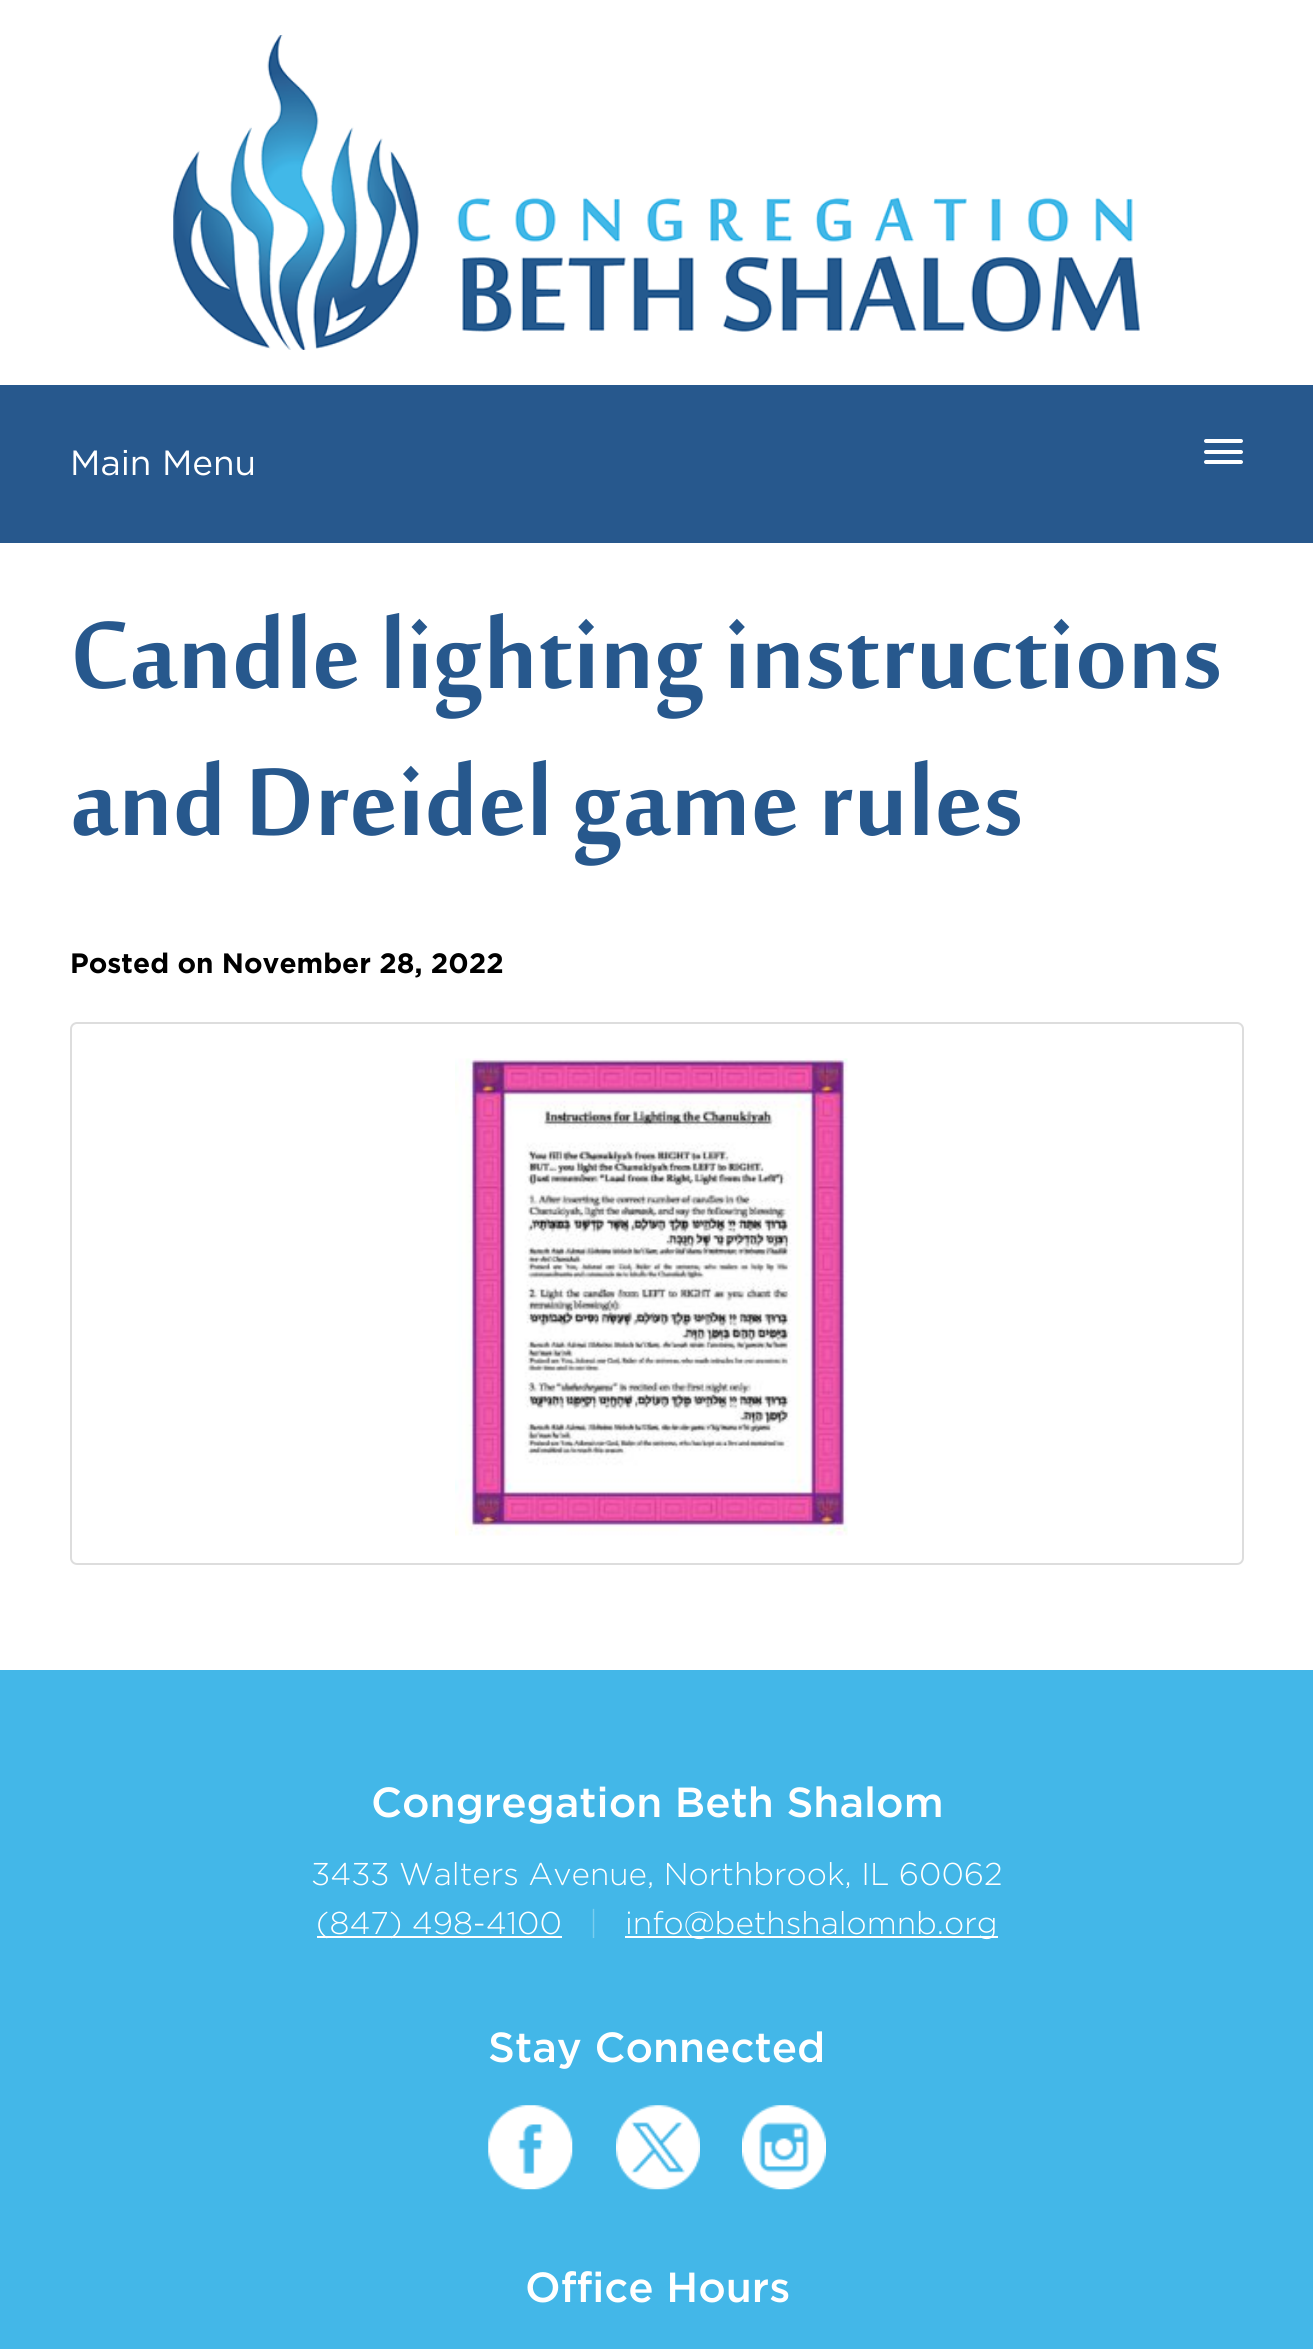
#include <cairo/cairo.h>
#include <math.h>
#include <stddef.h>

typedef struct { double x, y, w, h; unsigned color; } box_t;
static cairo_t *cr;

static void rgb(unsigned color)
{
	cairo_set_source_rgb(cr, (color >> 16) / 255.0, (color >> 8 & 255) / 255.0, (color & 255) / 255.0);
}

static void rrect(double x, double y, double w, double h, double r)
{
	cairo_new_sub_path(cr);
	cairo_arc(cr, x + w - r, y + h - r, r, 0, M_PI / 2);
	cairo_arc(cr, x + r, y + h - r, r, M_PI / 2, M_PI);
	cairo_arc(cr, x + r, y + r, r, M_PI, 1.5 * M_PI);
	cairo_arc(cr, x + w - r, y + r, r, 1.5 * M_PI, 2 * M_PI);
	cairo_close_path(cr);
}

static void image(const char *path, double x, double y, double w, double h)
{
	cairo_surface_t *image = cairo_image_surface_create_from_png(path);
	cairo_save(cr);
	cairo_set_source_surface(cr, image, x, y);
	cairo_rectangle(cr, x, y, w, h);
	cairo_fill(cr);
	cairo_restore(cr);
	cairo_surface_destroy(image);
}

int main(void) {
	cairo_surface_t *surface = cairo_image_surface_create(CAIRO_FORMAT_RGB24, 1313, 2349);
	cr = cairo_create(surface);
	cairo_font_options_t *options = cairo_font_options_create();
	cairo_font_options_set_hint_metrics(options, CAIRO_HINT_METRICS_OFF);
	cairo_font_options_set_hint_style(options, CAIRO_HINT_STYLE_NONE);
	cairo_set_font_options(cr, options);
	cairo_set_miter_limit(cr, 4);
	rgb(0x27588d);
	cairo_paint(cr);
	rgb(0xffffff);
	cairo_rectangle(cr, 0, 0, 1313, 385);
	cairo_fill(cr);
	image("img/1.png", 173, 35, 967, 315);
	rrect(1204, 439, 39, 4, 2);
	cairo_fill(cr);
	rrect(1204, 450, 39, 4, 2);
	cairo_fill(cr);
	rrect(1204, 460, 39, 4, 2);
	cairo_fill(cr);
	cairo_rectangle(cr, 0, 543, 1313, 1127);
	cairo_fill(cr);
	rrect(71, 1023, 1172, 541, 6);
	rgb(0xdddddd);
	cairo_stroke(cr);
	image("img/2.png", 455, 1058, 393, 478);
	{
		static const box_t items[] = {
			{0, 1670, 1313, 679, 0x43b7e8},
			{317, 1936, 245, 2, 0xffffff},
			{625, 1936, 373, 2, 0xffffff},
		};
		for (size_t i = 0; i < sizeof items / sizeof *items; i++) {
			rgb(items[i].color);
			cairo_rectangle(cr, items[i].x, items[i].y, items[i].w, items[i].h);
			cairo_fill(cr);
		}
	}
	image("img/3.png", 488, 2105, 85, 85);
	image("img/4.png", 616, 2105, 84, 85);
	image("img/5.png", 742, 2105, 84, 85);
	cairo_select_font_face(cr, "Gotham", CAIRO_FONT_SLANT_NORMAL, CAIRO_FONT_WEIGHT_NORMAL);
	cairo_set_font_size(cr, 35);
	cairo_move_to(cr, 70, 475);
	cairo_show_text(cr, "Main Menu");
	cairo_select_font_face(cr, "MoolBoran", CAIRO_FONT_SLANT_NORMAL, CAIRO_FONT_WEIGHT_NORMAL);
	cairo_set_font_size(cr, 147);
	rgb(0x27588d);
	cairo_move_to(cr, 70, 688);
	cairo_show_text(cr, "Candle lighting instructions");
	cairo_move_to(cr, 70, 835);
	cairo_show_text(cr, "and Dreidel game rules");
	cairo_select_font_face(cr, "Gotham", CAIRO_FONT_SLANT_NORMAL, CAIRO_FONT_WEIGHT_BOLD);
	cairo_set_font_size(cr, 28);
	rgb(0x000000);
	cairo_move_to(cr, 70, 973);
	cairo_show_text(cr, "Posted on November 28, 2022");
	cairo_select_font_face(cr, "Gotham Medium", CAIRO_FONT_SLANT_NORMAL, CAIRO_FONT_WEIGHT_NORMAL);
	cairo_set_font_size(cr, 42);
	rgb(0xffffff);
	cairo_move_to(cr, 371, 1817);
	cairo_show_text(cr, "Congregation Beth Shalom");
	cairo_select_font_face(cr, "Gotham Light", CAIRO_FONT_SLANT_NORMAL, CAIRO_FONT_WEIGHT_NORMAL);
	cairo_set_font_size(cr, 31.5);
	cairo_move_to(cr, 311, 1885);
	cairo_show_text(cr, "3433 Walters Avenue, Northbrook, IL 60062");
	cairo_move_to(cr, 316, 1934);
	cairo_show_text(cr, "(847) 498-4100");
	rgb(0x7bcdef);
	cairo_move_to(cr, 589, 1934);
	cairo_show_text(cr, "|");
	rgb(0xffffff);
	cairo_move_to(cr, 625, 1934);
	cairo_show_text(cr, "info@bethshalomnb.org");
	cairo_select_font_face(cr, "Gotham Medium", CAIRO_FONT_SLANT_NORMAL, CAIRO_FONT_WEIGHT_NORMAL);
	cairo_set_font_size(cr, 42);
	cairo_move_to(cr, 488, 2062);
	cairo_show_text(cr, "Stay Connected");
	cairo_move_to(cr, 525, 2302);
	cairo_show_text(cr, "Office Hours");
	cairo_surface_write_to_png(surface, "page.png");
	cairo_font_options_destroy(options);
	cairo_destroy(cr);
	cairo_surface_destroy(surface);
	return 0;
}
